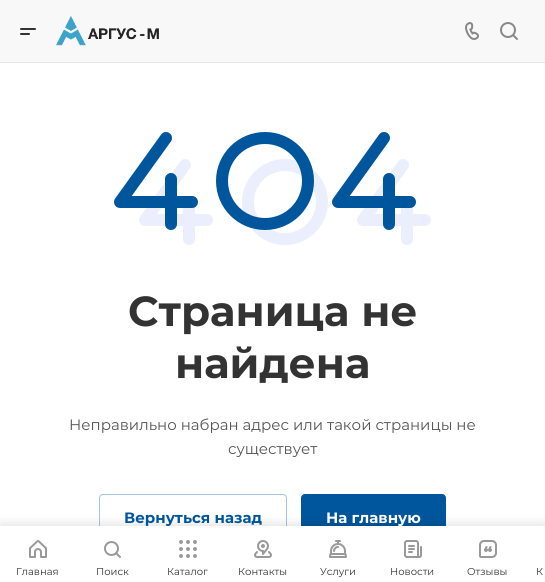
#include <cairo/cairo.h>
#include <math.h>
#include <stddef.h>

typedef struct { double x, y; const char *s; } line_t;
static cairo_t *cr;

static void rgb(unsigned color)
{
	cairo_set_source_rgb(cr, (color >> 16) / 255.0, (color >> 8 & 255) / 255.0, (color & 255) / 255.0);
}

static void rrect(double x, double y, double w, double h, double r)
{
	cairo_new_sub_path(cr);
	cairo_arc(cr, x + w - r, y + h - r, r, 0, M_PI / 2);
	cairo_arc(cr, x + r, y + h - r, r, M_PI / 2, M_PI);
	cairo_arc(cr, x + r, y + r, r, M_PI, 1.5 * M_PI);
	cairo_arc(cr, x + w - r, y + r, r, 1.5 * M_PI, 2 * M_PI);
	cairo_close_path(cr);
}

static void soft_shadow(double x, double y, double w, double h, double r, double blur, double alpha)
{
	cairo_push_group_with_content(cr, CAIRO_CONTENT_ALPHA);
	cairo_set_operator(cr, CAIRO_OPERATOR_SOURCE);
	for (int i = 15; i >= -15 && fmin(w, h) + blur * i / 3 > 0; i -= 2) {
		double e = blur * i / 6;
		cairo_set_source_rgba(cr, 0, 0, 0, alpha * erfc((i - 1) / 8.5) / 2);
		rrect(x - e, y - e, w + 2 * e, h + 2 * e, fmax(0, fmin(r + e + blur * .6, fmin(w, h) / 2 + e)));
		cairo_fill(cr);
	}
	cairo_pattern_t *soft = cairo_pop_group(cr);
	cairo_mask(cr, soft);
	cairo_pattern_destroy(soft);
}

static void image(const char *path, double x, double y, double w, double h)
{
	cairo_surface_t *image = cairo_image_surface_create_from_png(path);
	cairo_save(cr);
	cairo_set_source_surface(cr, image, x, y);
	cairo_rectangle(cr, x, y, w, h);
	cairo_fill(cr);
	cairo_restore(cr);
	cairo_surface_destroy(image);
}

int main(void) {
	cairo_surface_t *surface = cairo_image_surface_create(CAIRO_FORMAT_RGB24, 545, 582);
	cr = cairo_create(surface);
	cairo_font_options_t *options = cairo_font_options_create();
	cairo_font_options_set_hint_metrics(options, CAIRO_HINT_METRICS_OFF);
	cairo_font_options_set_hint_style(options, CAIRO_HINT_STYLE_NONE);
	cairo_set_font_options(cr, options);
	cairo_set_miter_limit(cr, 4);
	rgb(0xffffff);
	cairo_paint(cr);
	rgb(0xe5e5e5);
	cairo_rectangle(cr, 0, 62, 545, 1);
	cairo_fill(cr);
	rgb(0xf8f8f8);
	cairo_rectangle(cr, 0, 0, 545, 62);
	cairo_fill(cr);
	image("img/1.png", 20, 28, 16, 7);
	image("img/2.png", 56, 16, 103, 30);
	image("img/3.png", 465, 22, 14, 18);
	image("img/4.png", 500, 22, 18, 18);
	image("img/5.png", 114, 132, 317, 113);
	rrect(99.5, 494.5, 187, 47, 3.5);
	rgb(0xa6c4dd);
	cairo_set_line_width(cr, 1);
	cairo_stroke(cr);
	rgb(0x00569c);
	rrect(301.5, 494.5, 144, 47, 3.5);
	cairo_fill_preserve(cr);
	cairo_stroke(cr);
	rgb(0x000000);
	soft_shadow(0, 523, 545, 56, 0, 5, 0.1);
	rgb(0xffffff);
	cairo_rectangle(cr, 0, 526, 545, 56);
	cairo_fill(cr);
	image("img/6.png", 29, 540, 18, 18);
	image("img/7.png", 104, 541, 17, 17);
	image("img/8.png", 179, 540, 18, 18);
	image("img/9.png", 254, 540, 18, 18);
	image("img/10.png", 329, 540, 18, 18);
	image("img/11.png", 404, 540, 18, 18);
	image("img/12.png", 479, 540, 18, 18);
	cairo_select_font_face(cr, "Montserrat", CAIRO_FONT_SLANT_NORMAL, CAIRO_FONT_WEIGHT_BOLD);
	cairo_set_font_size(cr, 42);
	rgb(0x333333);
	cairo_move_to(cr, 128, 326);
	cairo_show_text(cr, "Страница не");
	cairo_move_to(cr, 175, 378);
	cairo_show_text(cr, "найдена");
	cairo_select_font_face(cr, "Montserrat", CAIRO_FONT_SLANT_NORMAL, CAIRO_FONT_WEIGHT_NORMAL);
	cairo_set_font_size(cr, 15);
	rgb(0x555555);
	cairo_move_to(cr, 69, 430);
	cairo_show_text(cr, "Неправильно набран адрес или такой страницы не");
	cairo_move_to(cr, 228, 454);
	cairo_show_text(cr, "существует");
	cairo_select_font_face(cr, "Montserrat", CAIRO_FONT_SLANT_NORMAL, CAIRO_FONT_WEIGHT_BOLD);
	rgb(0x00569c);
	cairo_move_to(cr, 124, 523);
	cairo_show_text(cr, "Вернуться назад");
	rgb(0xffffff);
	cairo_move_to(cr, 326, 523);
	cairo_show_text(cr, "На главную");
	cairo_select_font_face(cr, "Montserrat", CAIRO_FONT_SLANT_NORMAL, CAIRO_FONT_WEIGHT_NORMAL);
	cairo_set_font_size(cr, 10);
	rgb(0x333333);
	{
		static const line_t items[] = {
			{16, 575, "Главная"},
			{96, 575, "Поиск"},
			{167, 575, "Каталог"},
			{238, 575, "Контакты"},
			{320, 575, "Услуги"},
			{390, 575, "Новости"},
			{467, 575, "Отзывы"},
			{536, 575, "К"},
		};
		for (size_t i = 0; i < sizeof items / sizeof *items; i++) {
			cairo_move_to(cr, items[i].x, items[i].y);
			cairo_show_text(cr, items[i].s);
		}
	}
	cairo_surface_write_to_png(surface, "page.png");
	cairo_font_options_destroy(options);
	cairo_destroy(cr);
	cairo_surface_destroy(surface);
	return 0;
}
